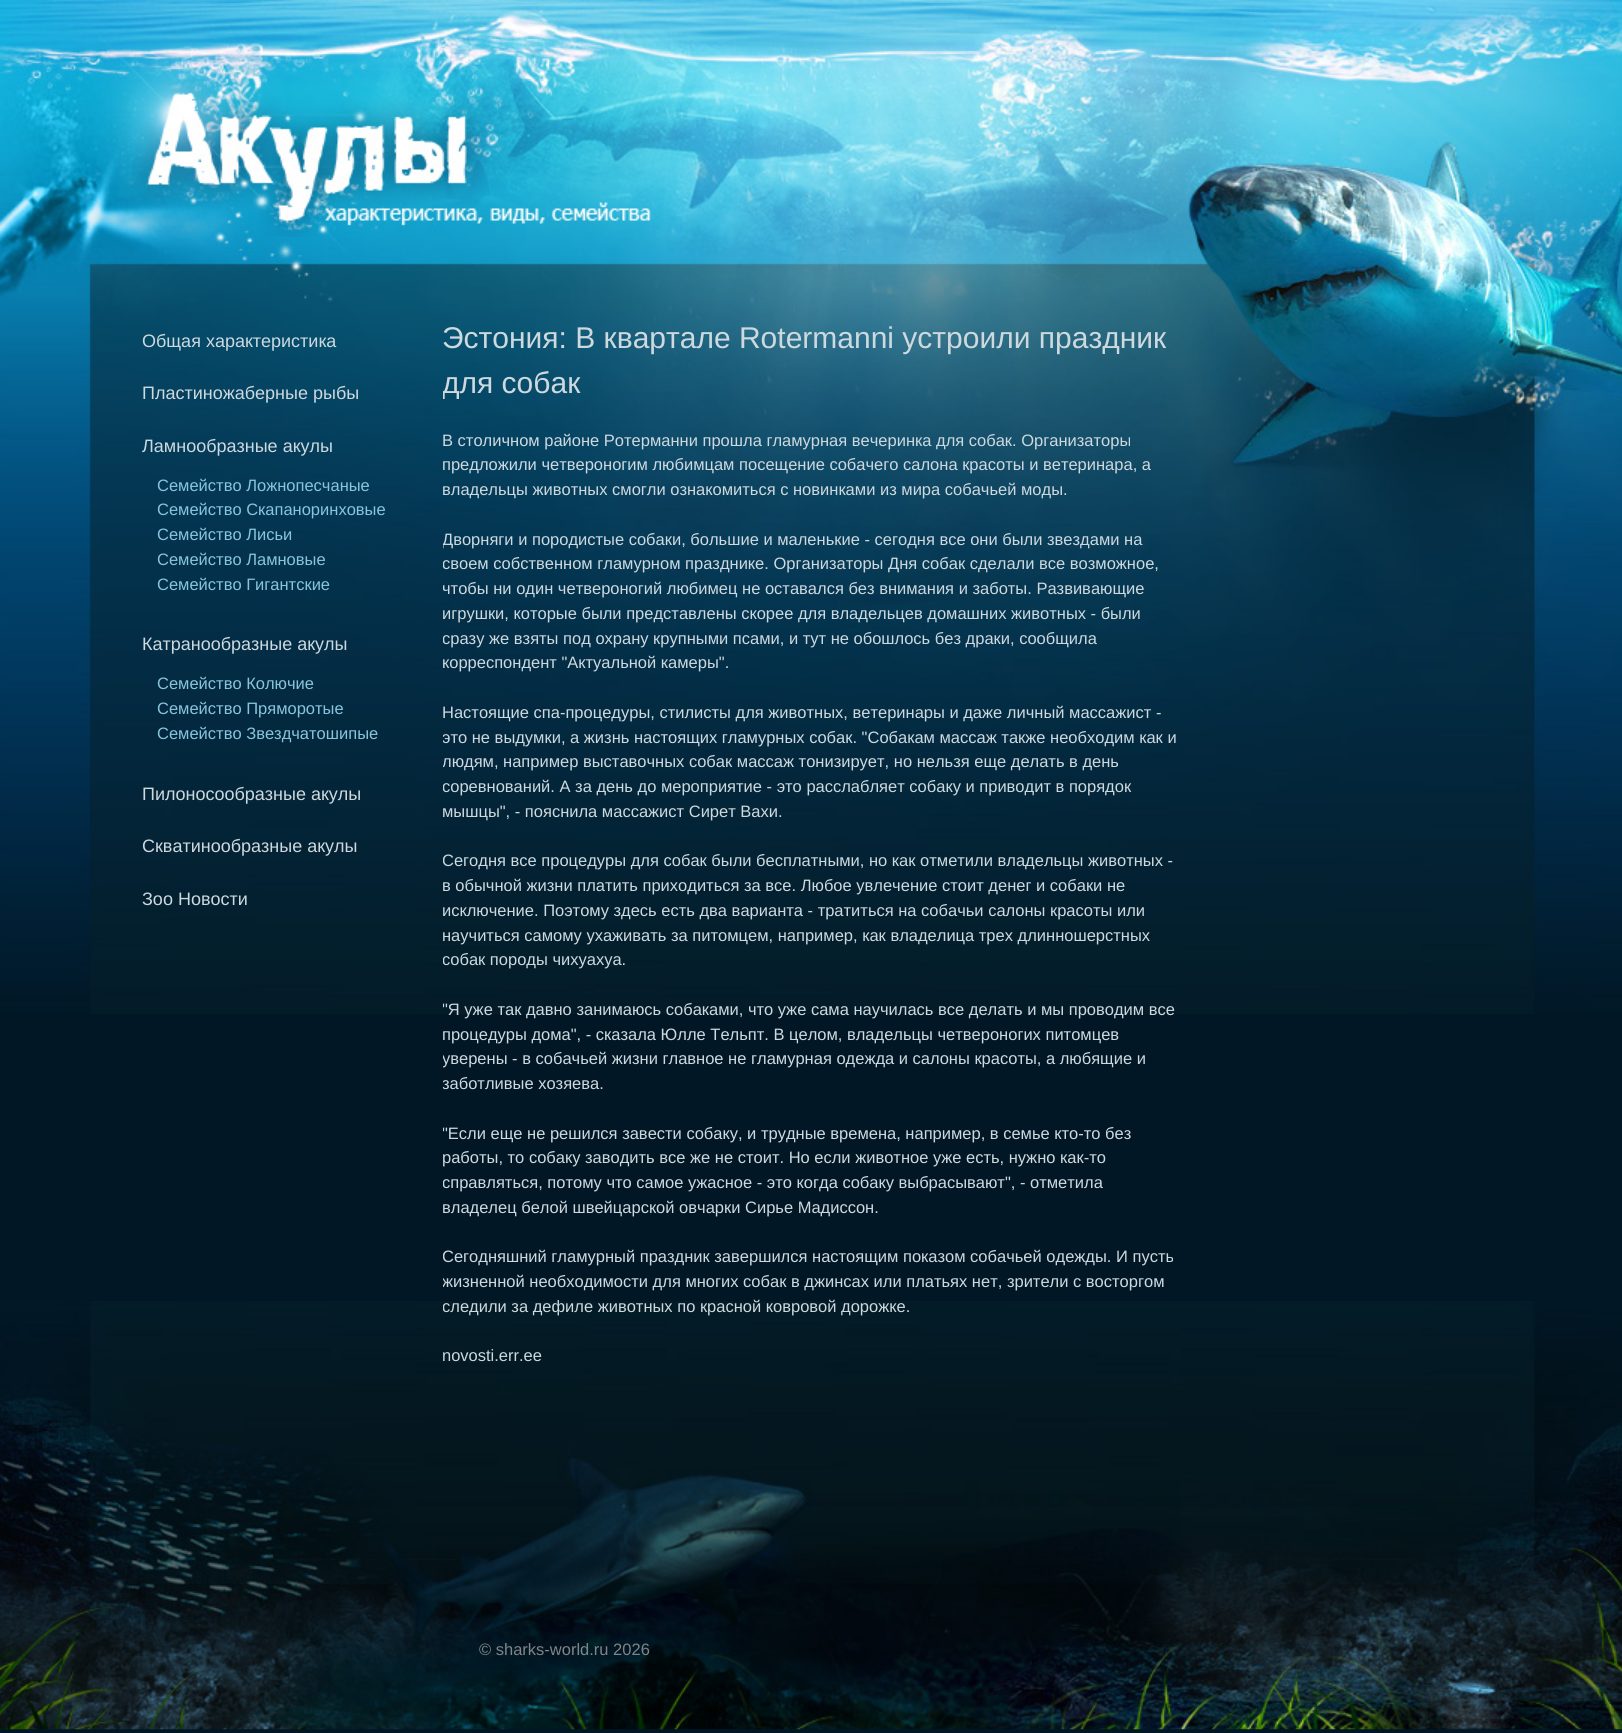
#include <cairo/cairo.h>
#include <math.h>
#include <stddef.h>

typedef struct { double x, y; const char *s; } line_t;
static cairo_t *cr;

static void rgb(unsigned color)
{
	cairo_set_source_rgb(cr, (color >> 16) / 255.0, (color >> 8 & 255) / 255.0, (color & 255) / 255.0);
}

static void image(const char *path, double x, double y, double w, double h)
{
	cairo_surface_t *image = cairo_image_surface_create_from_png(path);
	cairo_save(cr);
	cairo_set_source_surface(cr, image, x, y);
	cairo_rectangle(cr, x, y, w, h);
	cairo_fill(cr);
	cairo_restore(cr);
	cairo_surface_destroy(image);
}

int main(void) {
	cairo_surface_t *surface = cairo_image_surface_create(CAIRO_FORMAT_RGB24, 1622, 1733);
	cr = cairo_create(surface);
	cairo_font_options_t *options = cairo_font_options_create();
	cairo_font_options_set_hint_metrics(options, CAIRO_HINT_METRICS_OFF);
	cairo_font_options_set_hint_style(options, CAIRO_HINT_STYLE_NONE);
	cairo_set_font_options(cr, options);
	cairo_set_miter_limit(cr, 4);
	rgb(0x021726);
	cairo_paint(cr);
	image("img/1.png", 0, 0, 1622, 1014);
	image("img/2.png", 132, 79, 533, 158);
	image("img/3.png", 0, 1301, 1622, 429);
	cairo_select_font_face(cr, "Liberation Sans", CAIRO_FONT_SLANT_NORMAL, CAIRO_FONT_WEIGHT_NORMAL);
	cairo_set_font_size(cr, 18);
	rgb(0xcdd9de);
	{
		static const line_t items[] = {
			{142, 347, "Общая характеристика"},
			{142, 399, "Пластиножаберные рыбы"},
			{142, 452, "Ламнообразные акулы"},
		};
		for (size_t i = 0; i < sizeof items / sizeof *items; i++) {
			cairo_move_to(cr, items[i].x, items[i].y);
			cairo_show_text(cr, items[i].s);
		}
	}
	cairo_set_font_size(cr, 16.5);
	rgb(0x88c5dd);
	{
		static const line_t items[] = {
			{157, 491, "Семейство Ложнопесчаные"},
			{157, 515, "Семейство Скапаноринховые"},
			{157, 540, "Семейство Лисьи"},
			{157, 565, "Семейство Ламновые"},
			{157, 590, "Семейство Гигантские"},
		};
		for (size_t i = 0; i < sizeof items / sizeof *items; i++) {
			cairo_move_to(cr, items[i].x, items[i].y);
			cairo_show_text(cr, items[i].s);
		}
	}
	cairo_set_font_size(cr, 18);
	rgb(0xcdd9de);
	cairo_move_to(cr, 142, 650);
	cairo_show_text(cr, "Катранообразные акулы");
	cairo_set_font_size(cr, 16.5);
	rgb(0x88c5dd);
	{
		static const line_t items[] = {
			{157, 689, "Семейство Колючие"},
			{157, 714, "Семейство Пряморотые"},
			{157, 739, "Семейство Звездчатошипые"},
		};
		for (size_t i = 0; i < sizeof items / sizeof *items; i++) {
			cairo_move_to(cr, items[i].x, items[i].y);
			cairo_show_text(cr, items[i].s);
		}
	}
	cairo_set_font_size(cr, 18);
	rgb(0xcdd9de);
	{
		static const line_t items[] = {
			{142, 800, "Пилоносообразные акулы"},
			{142, 852, "Скватинообразные акулы"},
			{142, 905, "Зоо Новости"},
		};
		for (size_t i = 0; i < sizeof items / sizeof *items; i++) {
			cairo_move_to(cr, items[i].x, items[i].y);
			cairo_show_text(cr, items[i].s);
		}
	}
	cairo_set_font_size(cr, 30);
	cairo_move_to(cr, 442, 348);
	cairo_show_text(cr, "Эстония: В квартале Rotermanni устроили праздник");
	cairo_save(cr);
	cairo_rectangle(cr, 443, 315, 739, 1070);
	cairo_clip(cr);
	cairo_move_to(cr, 442, 393);
	cairo_show_text(cr, "для собак");
	cairo_restore(cr);
	cairo_set_font_size(cr, 16.5);
	cairo_move_to(cr, 442, 446);
	cairo_show_text(cr, "В столичном районе Ротерманни прошла гламурная вечеринка для собак. Организаторы");
	cairo_save(cr);
	cairo_rectangle(cr, 443, 315, 739, 1070);
	cairo_clip(cr);
	{
		static const line_t items[] = {
			{442, 470, "предложили четвероногим любимцам посещение собачего салона красоты и ветеринара, а"},
			{442, 495, "владельцы животных смогли ознакомиться с новинками из мира собачьей моды."},
			{442, 545, "Дворняги и породистые собаки, большие и маленькие - сегодня все они были звездами на"},
			{442, 569, "своем собственном гламурном празднике. Организаторы Дня собак сделали все возможное,"},
			{442, 594, "чтобы ни один четвероногий любимец не оставался без внимания и заботы. Развивающие"},
			{442, 619, "игрушки, которые были представлены скорее для владельцев домашних животных - были"},
			{442, 644, "сразу же взяты под охрану крупными псами, и тут не обошлось без драки, сообщила"},
			{442, 668, "корреспондент \"Актуальной камеры\"."},
		};
		for (size_t i = 0; i < sizeof items / sizeof *items; i++) {
			cairo_move_to(cr, items[i].x, items[i].y);
			cairo_show_text(cr, items[i].s);
		}
	}
	cairo_restore(cr);
	cairo_move_to(cr, 442, 718);
	cairo_show_text(cr, "Настоящие спа-процедуры, стилисты для животных, ветеринары и даже личный массажист -");
	cairo_save(cr);
	cairo_rectangle(cr, 443, 315, 739, 1070);
	cairo_clip(cr);
	{
		static const line_t items[] = {
			{442, 743, "это не выдумки, а жизнь настоящих гламурных собак. \"Собакам массаж также необходим как и"},
			{442, 767, "людям, например выставочных собак массаж тонизирует, но нельзя еще делать в день"},
			{442, 792, "соревнований. А за день до мероприятие - это расслабляет собаку и приводит в порядок"},
			{442, 817, "мышцы\", - пояснила массажист Сирет Вахи."},
			{442, 866, "Сегодня все процедуры для собак были бесплатными, но как отметили владельцы животных -"},
			{442, 891, "в обычной жизни платить приходиться за все. Любое увлечение стоит денег и собаки не"},
			{442, 916, "исключение. Поэтому здесь есть два варианта - тратиться на собачьи салоны красоты или"},
			{442, 941, "научиться самому ухаживать за питомцем, например, как владелица трех длинношерстных"},
			{442, 965, "собак породы чихуахуа."},
			{442, 1015, "\"Я уже так давно занимаюсь собаками, что уже сама научилась все делать и мы проводим все"},
			{442, 1040, "процедуры дома\", - сказала Юлле Тельпт. В целом, владельцы четвероногих питомцев"},
			{442, 1064, "уверены - в собачьей жизни главное не гламурная одежда и салоны красоты, а любящие и"},
			{442, 1089, "заботливые хозяева."},
			{442, 1139, "\"Если еще не решился завести собаку, и трудные времена, например, в семье кто-то без"},
			{442, 1163, "работы, то собаку заводить все же не стоит. Но если животное уже есть, нужно как-то"},
			{442, 1188, "справляться, потому что самое ужасное - это когда собаку выбрасывают\", - отметила"},
			{442, 1213, "владелец белой швейцарской овчарки Сирье Мадиссон."},
			{442, 1262, "Сегодняшний гламурный праздник завершился настоящим показом собачьей одежды. И пусть"},
			{442, 1287, "жизненной необходимости для многих собак в джинсах или платьях нет, зрители с восторгом"},
			{442, 1312, "следили за дефиле животных по красной ковровой дорожке."},
			{442, 1361, "novosti.err.ee"},
		};
		for (size_t i = 0; i < sizeof items / sizeof *items; i++) {
			cairo_move_to(cr, items[i].x, items[i].y);
			cairo_show_text(cr, items[i].s);
		}
	}
	cairo_restore(cr);
	rgb(0x818489);
	cairo_move_to(cr, 479, 1655);
	cairo_show_text(cr, "© sharks-world.ru 2026");
	cairo_surface_write_to_png(surface, "page.png");
	cairo_font_options_destroy(options);
	cairo_destroy(cr);
	cairo_surface_destroy(surface);
	return 0;
}
